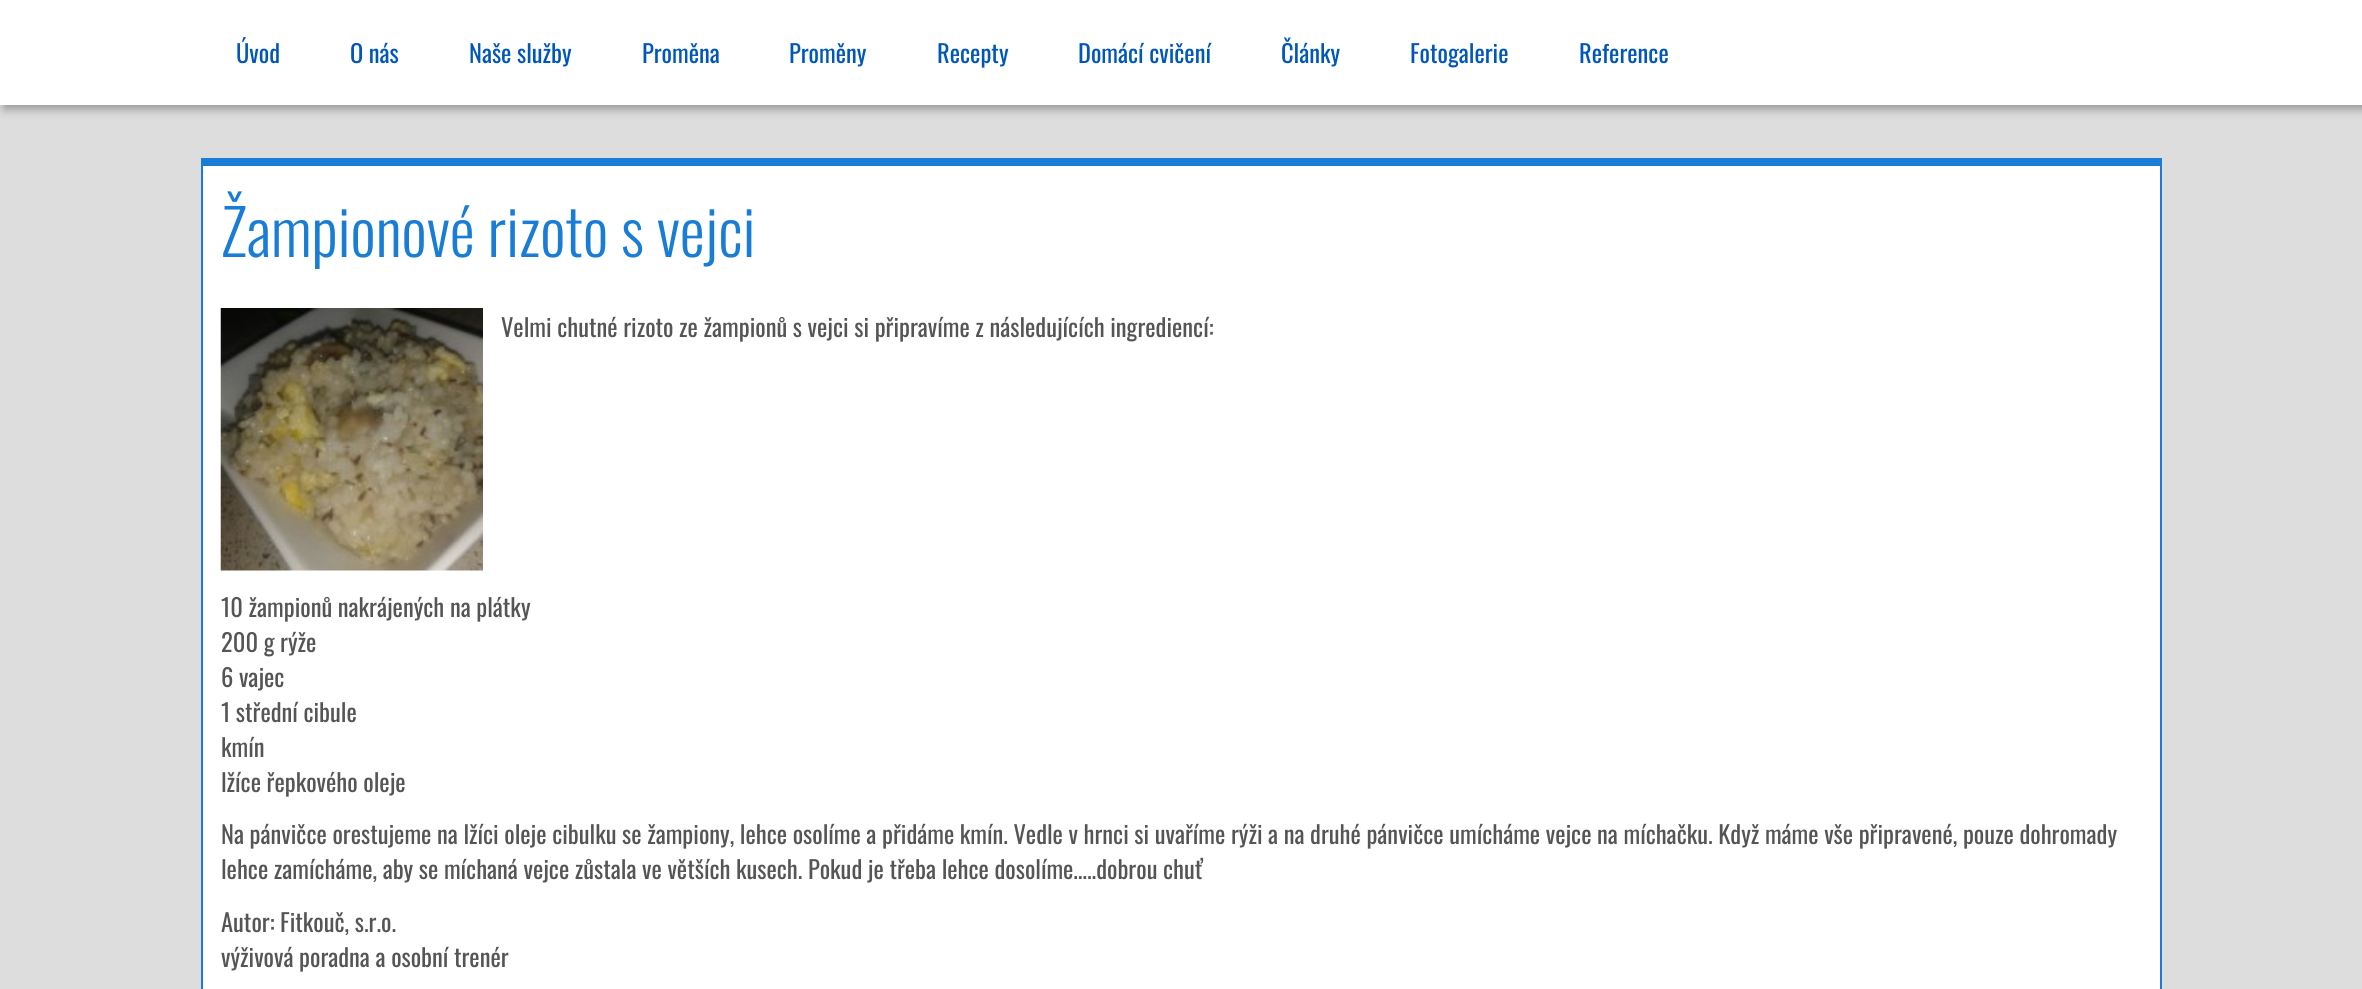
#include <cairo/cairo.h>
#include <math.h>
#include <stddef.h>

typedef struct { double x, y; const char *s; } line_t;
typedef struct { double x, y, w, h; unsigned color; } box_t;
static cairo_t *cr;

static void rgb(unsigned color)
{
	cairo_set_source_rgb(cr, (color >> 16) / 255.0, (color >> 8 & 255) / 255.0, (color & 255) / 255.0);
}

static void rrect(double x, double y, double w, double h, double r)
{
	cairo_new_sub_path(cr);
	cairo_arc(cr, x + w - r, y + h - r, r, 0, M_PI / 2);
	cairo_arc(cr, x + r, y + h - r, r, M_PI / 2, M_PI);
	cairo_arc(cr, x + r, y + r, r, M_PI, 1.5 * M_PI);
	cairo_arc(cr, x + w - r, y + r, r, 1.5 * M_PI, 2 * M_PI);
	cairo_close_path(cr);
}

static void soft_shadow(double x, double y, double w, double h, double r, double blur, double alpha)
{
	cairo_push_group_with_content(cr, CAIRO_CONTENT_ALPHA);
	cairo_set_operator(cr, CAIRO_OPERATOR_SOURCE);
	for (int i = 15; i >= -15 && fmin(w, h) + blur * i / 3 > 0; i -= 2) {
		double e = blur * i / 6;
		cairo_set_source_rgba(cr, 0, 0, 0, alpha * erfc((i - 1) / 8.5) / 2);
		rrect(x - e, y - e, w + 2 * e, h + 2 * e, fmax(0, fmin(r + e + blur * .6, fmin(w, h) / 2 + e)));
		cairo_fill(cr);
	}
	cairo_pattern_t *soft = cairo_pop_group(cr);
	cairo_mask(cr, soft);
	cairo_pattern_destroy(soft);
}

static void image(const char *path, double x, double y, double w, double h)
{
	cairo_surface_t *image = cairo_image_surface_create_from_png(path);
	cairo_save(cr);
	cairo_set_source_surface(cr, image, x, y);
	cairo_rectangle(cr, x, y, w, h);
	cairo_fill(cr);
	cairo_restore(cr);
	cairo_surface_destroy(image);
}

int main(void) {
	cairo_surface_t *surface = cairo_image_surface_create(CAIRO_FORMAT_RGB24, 2362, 989);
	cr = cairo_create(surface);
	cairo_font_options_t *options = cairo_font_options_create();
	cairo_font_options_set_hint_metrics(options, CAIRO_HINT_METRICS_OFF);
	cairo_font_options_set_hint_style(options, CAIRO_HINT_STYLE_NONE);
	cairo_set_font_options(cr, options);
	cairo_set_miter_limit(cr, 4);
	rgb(0xdddddd);
	cairo_paint(cr);
	rgb(0x000000);
	soft_shadow(4, 4, 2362, 105, 0, 5, 0.33);
	{
		static const box_t items[] = {
			{0, 0, 2362, 105, 0xffffff},
			{203, 166, 1957, 823, 0xffffff},
			{201, 158, 1960, 8, 0x1a7dd5},
			{2160, 158, 2, 831, 0x1a7dd5},
			{201, 158, 2, 831, 0x1a7dd5},
		};
		for (size_t i = 0; i < sizeof items / sizeof *items; i++) {
			rgb(items[i].color);
			cairo_rectangle(cr, items[i].x, items[i].y, items[i].w, items[i].h);
			cairo_fill(cr);
		}
	}
	image("img/1.png", 220, 308, 263, 263);
	cairo_select_font_face(cr, "Oswald", CAIRO_FONT_SLANT_NORMAL, CAIRO_FONT_WEIGHT_NORMAL);
	cairo_set_font_size(cr, 24.5);
	rgb(0x0057b8);
	{
		static const line_t items[] = {
			{236, 63, "Úvod"},
			{350, 63, "O nás"},
			{469, 63, "Naše služby"},
			{642, 63, "Proměna"},
			{789, 63, "Proměny"},
			{937, 63, "Recepty"},
			{1078, 63, "Domácí cvičení"},
			{1281, 63, "Články"},
			{1410, 63, "Fotogalerie"},
			{1579, 63, "Reference"},
		};
		for (size_t i = 0; i < sizeof items / sizeof *items; i++) {
			cairo_move_to(cr, items[i].x, items[i].y);
			cairo_show_text(cr, items[i].s);
		}
	}
	cairo_select_font_face(cr, "Oswald Light", CAIRO_FONT_SLANT_NORMAL, CAIRO_FONT_WEIGHT_NORMAL);
	cairo_set_font_size(cr, 63);
	rgb(0x1a7dd5);
	cairo_move_to(cr, 221, 257);
	cairo_show_text(cr, "Žampionové rizoto s vejci");
	cairo_select_font_face(cr, "Oswald", CAIRO_FONT_SLANT_NORMAL, CAIRO_FONT_WEIGHT_NORMAL);
	cairo_set_font_size(cr, 24.5);
	rgb(0x555555);
	{
		static const line_t items[] = {
			{501, 337, "Velmi chutné rizoto ze žampionů s vejci si připravíme z následujících ingrediencí:"},
			{221, 617, "10 žampionů nakrájených na plátky"},
			{221, 652, "200 g rýže"},
			{221, 687, "6 vajec"},
			{221, 722, "1 střední cibule"},
			{221, 757, "kmín"},
			{221, 792, "lžíce řepkového oleje"},
			{221, 844, "Na pánvičce orestujeme na lžíci oleje cibulku se žampiony, lehce osolíme a přidáme kmín. Vedle v hrnci si uvaříme rýži a na druhé pánvičce umícháme vejce na míchačku. Když máme vše připravené, pouze dohromady"},
			{221, 879, "lehce zamícháme, aby se míchaná vejce zůstala ve větších kusech. Pokud je třeba lehce dosolíme…..dobrou chuť"},
			{221, 932, "Autor: Fitkouč, s.r.o."},
			{221, 967, "výživová poradna a osobní trenér"},
		};
		for (size_t i = 0; i < sizeof items / sizeof *items; i++) {
			cairo_move_to(cr, items[i].x, items[i].y);
			cairo_show_text(cr, items[i].s);
		}
	}
	cairo_surface_write_to_png(surface, "page.png");
	cairo_font_options_destroy(options);
	cairo_destroy(cr);
	cairo_surface_destroy(surface);
	return 0;
}
